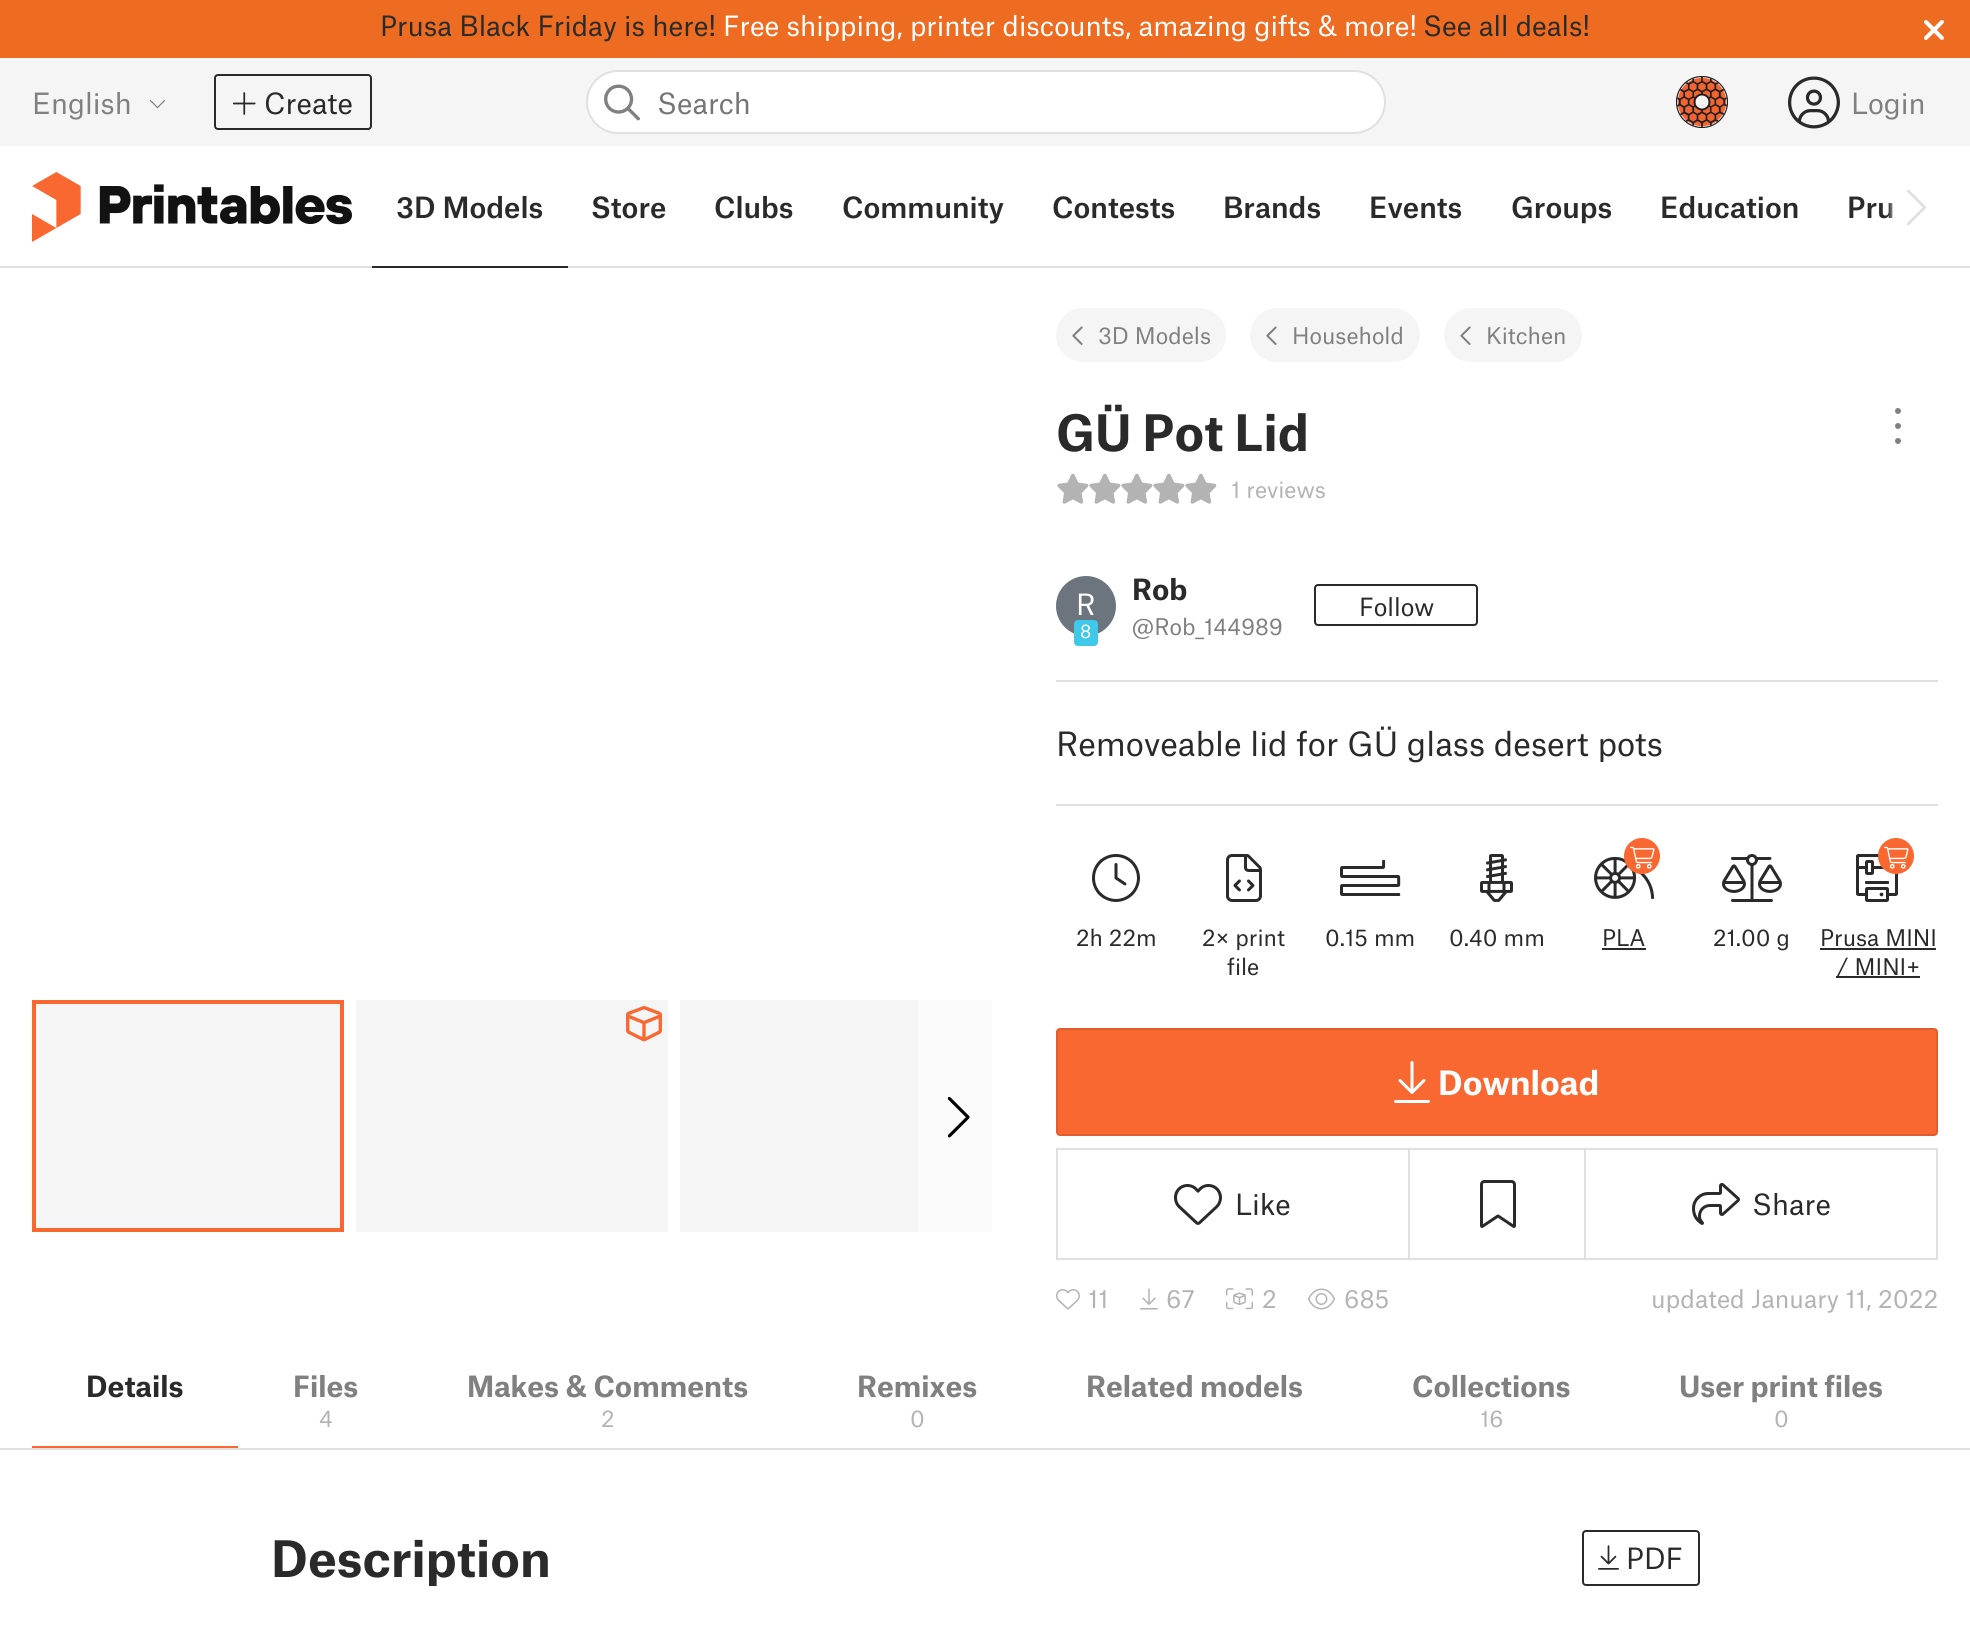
#include <cairo/cairo.h>
#include <math.h>
#include <stddef.h>

typedef struct { double x, y; const char *s; } line_t;
static cairo_t *cr;

static void rgb(unsigned color)
{
	cairo_set_source_rgb(cr, (color >> 16) / 255.0, (color >> 8 & 255) / 255.0, (color & 255) / 255.0);
}

static void rrect(double x, double y, double w, double h, double r)
{
	cairo_new_sub_path(cr);
	cairo_arc(cr, x + w - r, y + h - r, r, 0, M_PI / 2);
	cairo_arc(cr, x + r, y + h - r, r, M_PI / 2, M_PI);
	cairo_arc(cr, x + r, y + r, r, M_PI, 1.5 * M_PI);
	cairo_arc(cr, x + w - r, y + r, r, 1.5 * M_PI, 2 * M_PI);
	cairo_close_path(cr);
}

static void image(const char *path, double x, double y, double w, double h)
{
	cairo_surface_t *image = cairo_image_surface_create_from_png(path);
	cairo_save(cr);
	cairo_set_source_surface(cr, image, x, y);
	cairo_rectangle(cr, x, y, w, h);
	cairo_fill(cr);
	cairo_restore(cr);
	cairo_surface_destroy(image);
}

int main(void) {
	cairo_surface_t *surface = cairo_image_surface_create(CAIRO_FORMAT_RGB24, 1970, 1635);
	cr = cairo_create(surface);
	cairo_font_options_t *options = cairo_font_options_create();
	cairo_font_options_set_hint_metrics(options, CAIRO_HINT_METRICS_OFF);
	cairo_font_options_set_hint_style(options, CAIRO_HINT_STYLE_NONE);
	cairo_set_font_options(cr, options);
	cairo_set_miter_limit(cr, 4);
	cairo_pattern_t *gradient;
	rgb(0xffffff);
	cairo_paint(cr);
	rgb(0xed6c21);
	cairo_rectangle(cr, 0, 0, 1970, 58);
	cairo_fill(cr);
	image("img/1.png", 1924, 20, 20, 20);
	rgb(0xf5f5f5);
	cairo_rectangle(cr, 0, 58, 1970, 88);
	cairo_fill(cr);
	image("img/2.png", 149, 100, 17, 9);
	rrect(215, 75, 156, 54, 3);
	rgb(0x2a2a2a);
	cairo_stroke(cr);
	image("img/3.png", 232, 92, 24, 23);
	rgb(0xffffff);
	rrect(587, 71, 798, 62, 31);
	cairo_fill_preserve(cr);
	rgb(0xe0e0e0);
	cairo_stroke(cr);
	image("img/4.png", 604, 84, 36, 37);
	image("img/5.png", 1676, 76, 52, 52);
	image("img/6.png", 1788, 76, 52, 53);
	cairo_rectangle(cr, 0, 266, 1970, 2);
	cairo_fill(cr);
	image("img/7.png", 32, 172, 320, 70);
	rgb(0x2a2a2a);
	cairo_rectangle(cr, 372, 266, 196, 2);
	cairo_fill(cr);
	image("img/8.png", 1907, 189, 19, 37);
	rgb(0xf5f5f5);
	rrect(1056, 308, 170, 54, 27);
	cairo_fill(cr);
	image("img/9.png", 1072, 326, 11, 19);
	rrect(1250, 308, 170, 54, 27);
	cairo_fill(cr);
	image("img/9.png", 1266, 326, 11, 19);
	rrect(1444, 308, 138, 54, 27);
	cairo_fill(cr);
	image("img/9.png", 1460, 326, 11, 19);
	image("img/10.png", 1895, 408, 6, 36);
	cairo_rectangle(cr, 34, 1002, 308, 228);
	cairo_fill_preserve(cr);
	rgb(0xfa6831);
	cairo_set_line_width(cr, 4);
	cairo_stroke(cr);
	rgb(0xf5f5f5);
	cairo_rectangle(cr, 356, 1000, 312, 232);
	cairo_fill(cr);
	image("img/11.png", 626, 1006, 36, 36);
	cairo_rectangle(cr, 680, 1000, 238, 232);
	cairo_fill(cr);
	rgb(0xfbfbfb);
	cairo_rectangle(cr, 918, 1000, 74, 232);
	cairo_fill(cr);
	image("img/12.png", 947, 1096, 23, 42);
	image("img/13.png", 1057, 473, 32, 31);
	image("img/13.png", 1089, 473, 32, 31);
	image("img/13.png", 1121, 473, 32, 31);
	image("img/13.png", 1153, 473, 32, 31);
	image("img/13.png", 1185, 473, 32, 31);
	rgb(0x6c757d);
	cairo_arc(cr, 1086, 606, 30, 0, 2 * M_PI);
	cairo_fill(cr);
	rgb(0x40c8e8);
	rrect(1074, 620, 24, 26, 4);
	cairo_fill(cr);
	rrect(1315, 585, 162, 40, 3);
	rgb(0x2a2a2a);
	cairo_set_line_width(cr, 2);
	cairo_stroke(cr);
	rgb(0xe0e0e0);
	cairo_rectangle(cr, 1056, 680, 882, 2);
	cairo_fill(cr);
	cairo_rectangle(cr, 1056, 804, 882, 2);
	cairo_fill(cr);
	image("img/14.png", 1092, 854, 48, 48);
	image("img/15.png", 1226, 854, 36, 48);
	image("img/16.png", 1340, 860, 61, 36);
	image("img/17.png", 1480, 854, 33, 48);
	image("img/19.png", 1594, 856, 61, 43);
	rgb(0xfa6831);
	cairo_arc(cr, 1642, 856, 17, 0, 2 * M_PI);
	cairo_fill_preserve(cr);
	cairo_stroke(cr);
	image("img/18.png", 1630, 846, 25, 23);
	rgb(0x2a2a2a);
	cairo_rectangle(cr, 1602, 948, 44, 2);
	cairo_fill(cr);
	image("img/20.png", 1722, 854, 60, 48);
	image("img/21.png", 1856, 854, 42, 48);
	rgb(0xfa6831);
	cairo_arc(cr, 1896, 856, 17, 0, 2 * M_PI);
	cairo_fill_preserve(cr);
	cairo_stroke(cr);
	image("img/18.png", 1884, 846, 25, 23);
	rgb(0x2a2a2a);
	cairo_rectangle(cr, 1820, 948, 116, 2);
	cairo_fill(cr);
	cairo_rectangle(cr, 1836, 976, 84, 2);
	cairo_fill(cr);
	rgb(0xfa6831);
	rrect(1057, 1029, 880, 106, 3);
	cairo_fill_preserve(cr);
	rgb(0xe05d2d);
	cairo_stroke(cr);
	image("img/22.png", 1394, 1061, 36, 42);
	cairo_rectangle(cr, 1057, 1149, 880, 110);
	rgb(0xe0e0e0);
	cairo_stroke(cr);
	image("img/23.png", 1174, 1184, 48, 41);
	cairo_rectangle(cr, 1408, 1150, 2, 108);
	cairo_fill(cr);
	image("img/24.png", 1480, 1180, 36, 48);
	cairo_rectangle(cr, 1584, 1150, 2, 108);
	cairo_fill(cr);
	image("img/25.png", 1692, 1183, 48, 42);
	image("img/26.png", 1056, 1289, 24, 21);
	image("img/27.png", 1140, 1288, 18, 22);
	image("img/28.png", 1226, 1288, 27, 22);
	image("img/29.png", 1308, 1288, 27, 22);
	cairo_rectangle(cr, 0, 1448, 1970, 2);
	cairo_fill(cr);
	rgb(0xfa6831);
	cairo_rectangle(cr, 32, 1446, 206, 2);
	cairo_fill(cr);
	rrect(1583, 1531, 116, 54, 3);
	rgb(0x2a2a2a);
	cairo_stroke(cr);
	image("img/30.png", 1598, 1545, 21, 25);
	cairo_select_font_face(cr, "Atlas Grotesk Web", CAIRO_FONT_SLANT_NORMAL, CAIRO_FONT_WEIGHT_NORMAL);
	cairo_set_font_size(cr, 26.75);
	cairo_move_to(cr, 380, 36);
	cairo_show_text(cr, "Prusa Black Friday is here!");
	rgb(0xffffff);
	cairo_move_to(cr, 723, 36);
	cairo_show_text(cr, "Free shipping, printer discounts, amazing gifts & more!");
	rgb(0x2a2a2a);
	cairo_move_to(cr, 1423, 36);
	cairo_show_text(cr, "See all deals!");
	cairo_set_font_size(cr, 28);
	rgb(0x808080);
	cairo_move_to(cr, 32, 114);
	cairo_show_text(cr, "English");
	rgb(0x2a2a2a);
	cairo_move_to(cr, 264, 114);
	cairo_show_text(cr, "Create");
	rgb(0x757575);
	cairo_move_to(cr, 657, 114);
	cairo_show_text(cr, "Search");
	rgb(0x808080);
	cairo_move_to(cr, 1851, 114);
	cairo_show_text(cr, "Login");
	cairo_select_font_face(cr, "Atlas Grotesk Web Medium", CAIRO_FONT_SLANT_NORMAL, CAIRO_FONT_WEIGHT_NORMAL);
	rgb(0x2a2a2a);
	{
		static const line_t items[] = {
			{396, 218, "3D Models"},
			{591, 218, "Store"},
			{714, 218, "Clubs"},
			{842, 218, "Community"},
			{1052, 218, "Contests"},
			{1223, 218, "Brands"},
			{1369, 218, "Events"},
			{1511, 218, "Groups"},
			{1660, 218, "Education"},
			{1847, 218, "Pru"},
		};
		for (size_t i = 0; i < sizeof items / sizeof *items; i++) {
			cairo_move_to(cr, items[i].x, items[i].y);
			cairo_show_text(cr, items[i].s);
		}
	}
	gradient = cairo_pattern_create_linear(1888, 206, 1940, 206);
	cairo_pattern_add_color_stop_rgba(gradient, 0, 1, 1, 1, 0);
	cairo_pattern_add_color_stop_rgba(gradient, 0.2, 1, 1, 1, 1);
	cairo_pattern_add_color_stop_rgba(gradient, 1, 1, 1, 1, 1);
	cairo_set_source(cr, gradient);
	cairo_pattern_destroy(gradient);
	cairo_rectangle(cr, 1888, 203, 5, 15);
	cairo_fill(cr);
	cairo_select_font_face(cr, "Atlas Grotesk Web", CAIRO_FONT_SLANT_NORMAL, CAIRO_FONT_WEIGHT_NORMAL);
	cairo_set_font_size(cr, 22);
	rgb(0x808080);
	{
		static const line_t items[] = {
			{1098, 344, "3D Models"},
			{1292, 344, "Household"},
			{1486, 344, "Kitchen"},
		};
		for (size_t i = 0; i < sizeof items / sizeof *items; i++) {
			cairo_move_to(cr, items[i].x, items[i].y);
			cairo_show_text(cr, items[i].s);
		}
	}
	cairo_select_font_face(cr, "Atlas Grotesk Web", CAIRO_FONT_SLANT_NORMAL, CAIRO_FONT_WEIGHT_BOLD);
	cairo_set_font_size(cr, 48);
	rgb(0x2a2a2a);
	cairo_move_to(cr, 1056, 451);
	cairo_show_text(cr, "GÜ Pot Lid");
	cairo_select_font_face(cr, "Atlas Grotesk Web", CAIRO_FONT_SLANT_NORMAL, CAIRO_FONT_WEIGHT_NORMAL);
	cairo_set_font_size(cr, 22);
	rgb(0xb3b3b3);
	cairo_move_to(cr, 1231, 498);
	cairo_show_text(cr, "1 reviews");
	cairo_set_font_size(cr, 28);
	rgb(0xffffff);
	cairo_move_to(cr, 1076, 615);
	cairo_show_text(cr, "R");
	cairo_set_font_size(cr, 18);
	cairo_move_to(cr, 1080, 638);
	cairo_show_text(cr, "8");
	cairo_select_font_face(cr, "Atlas Grotesk Web", CAIRO_FONT_SLANT_NORMAL, CAIRO_FONT_WEIGHT_BOLD);
	cairo_set_font_size(cr, 28);
	rgb(0x2a2a2a);
	cairo_move_to(cr, 1132, 600);
	cairo_show_text(cr, "Rob");
	cairo_select_font_face(cr, "Atlas Grotesk Web", CAIRO_FONT_SLANT_NORMAL, CAIRO_FONT_WEIGHT_NORMAL);
	cairo_set_font_size(cr, 22);
	rgb(0x808080);
	cairo_move_to(cr, 1132, 635);
	cairo_show_text(cr, "@Rob_144989");
	cairo_set_font_size(cr, 24);
	rgb(0x2a2a2a);
	cairo_move_to(cr, 1359, 616);
	cairo_show_text(cr, "Follow");
	cairo_set_font_size(cr, 32);
	cairo_move_to(cr, 1056, 756);
	cairo_show_text(cr, "Removeable lid for GÜ glass desert pots");
	cairo_set_font_size(cr, 22);
	{
		static const line_t items[] = {
			{1076, 946, "2h 22m"},
			{1202, 946, "2× print"},
			{1227, 975, "file"},
			{1325, 946, "0.15 mm"},
			{1449, 946, "0.40 mm"},
			{1602, 946, "PLA"},
			{1713, 946, "21.00 g"},
			{1820, 946, "Prusa MINI"},
			{1836, 975, "/ MINI+"},
		};
		for (size_t i = 0; i < sizeof items / sizeof *items; i++) {
			cairo_move_to(cr, items[i].x, items[i].y);
			cairo_show_text(cr, items[i].s);
		}
	}
	cairo_select_font_face(cr, "Atlas Grotesk Web", CAIRO_FONT_SLANT_NORMAL, CAIRO_FONT_WEIGHT_BOLD);
	cairo_set_font_size(cr, 32);
	rgb(0xffffff);
	cairo_move_to(cr, 1438, 1095);
	cairo_show_text(cr, "Download");
	cairo_select_font_face(cr, "Atlas Grotesk Web", CAIRO_FONT_SLANT_NORMAL, CAIRO_FONT_WEIGHT_NORMAL);
	cairo_set_font_size(cr, 28);
	rgb(0x2a2a2a);
	cairo_move_to(cr, 1235, 1215);
	cairo_show_text(cr, "Like");
	cairo_move_to(cr, 1752, 1215);
	cairo_show_text(cr, "Share");
	cairo_set_font_size(cr, 24);
	rgb(0xb3b3b3);
	{
		static const line_t items[] = {
			{1088, 1308, "11"},
			{1166, 1308, "67"},
			{1262, 1308, "2"},
			{1344, 1308, "685"},
			{1651, 1308, "updated January 11, 2022"},
		};
		for (size_t i = 0; i < sizeof items / sizeof *items; i++) {
			cairo_move_to(cr, items[i].x, items[i].y);
			cairo_show_text(cr, items[i].s);
		}
	}
	cairo_select_font_face(cr, "Atlas Grotesk Web", CAIRO_FONT_SLANT_NORMAL, CAIRO_FONT_WEIGHT_BOLD);
	cairo_set_font_size(cr, 28);
	rgb(0x2a2a2a);
	cairo_move_to(cr, 86, 1397);
	cairo_show_text(cr, "Details");
	rgb(0x808080);
	cairo_move_to(cr, 293, 1397);
	cairo_show_text(cr, "Files");
	cairo_select_font_face(cr, "Atlas Grotesk Web", CAIRO_FONT_SLANT_NORMAL, CAIRO_FONT_WEIGHT_NORMAL);
	cairo_set_font_size(cr, 22);
	rgb(0xb3b3b3);
	cairo_move_to(cr, 319, 1427);
	cairo_show_text(cr, "4");
	cairo_select_font_face(cr, "Atlas Grotesk Web", CAIRO_FONT_SLANT_NORMAL, CAIRO_FONT_WEIGHT_BOLD);
	cairo_set_font_size(cr, 28);
	rgb(0x808080);
	cairo_move_to(cr, 467, 1397);
	cairo_show_text(cr, "Makes & Comments");
	cairo_select_font_face(cr, "Atlas Grotesk Web", CAIRO_FONT_SLANT_NORMAL, CAIRO_FONT_WEIGHT_NORMAL);
	cairo_set_font_size(cr, 22);
	rgb(0xb3b3b3);
	cairo_move_to(cr, 601, 1427);
	cairo_show_text(cr, "2");
	cairo_select_font_face(cr, "Atlas Grotesk Web", CAIRO_FONT_SLANT_NORMAL, CAIRO_FONT_WEIGHT_BOLD);
	cairo_set_font_size(cr, 28);
	rgb(0x808080);
	cairo_move_to(cr, 857, 1397);
	cairo_show_text(cr, "Remixes");
	cairo_select_font_face(cr, "Atlas Grotesk Web", CAIRO_FONT_SLANT_NORMAL, CAIRO_FONT_WEIGHT_NORMAL);
	cairo_set_font_size(cr, 22);
	rgb(0xb3b3b3);
	cairo_move_to(cr, 910, 1427);
	cairo_show_text(cr, "0");
	cairo_select_font_face(cr, "Atlas Grotesk Web", CAIRO_FONT_SLANT_NORMAL, CAIRO_FONT_WEIGHT_BOLD);
	cairo_set_font_size(cr, 28);
	rgb(0x808080);
	cairo_move_to(cr, 1086, 1397);
	cairo_show_text(cr, "Related models");
	cairo_move_to(cr, 1412, 1397);
	cairo_show_text(cr, "Collections");
	cairo_select_font_face(cr, "Atlas Grotesk Web", CAIRO_FONT_SLANT_NORMAL, CAIRO_FONT_WEIGHT_NORMAL);
	cairo_set_font_size(cr, 22);
	rgb(0xb3b3b3);
	cairo_move_to(cr, 1480, 1427);
	cairo_show_text(cr, "16");
	cairo_select_font_face(cr, "Atlas Grotesk Web", CAIRO_FONT_SLANT_NORMAL, CAIRO_FONT_WEIGHT_BOLD);
	cairo_set_font_size(cr, 28);
	rgb(0x808080);
	cairo_move_to(cr, 1679, 1397);
	cairo_show_text(cr, "User print files");
	cairo_select_font_face(cr, "Atlas Grotesk Web", CAIRO_FONT_SLANT_NORMAL, CAIRO_FONT_WEIGHT_NORMAL);
	cairo_set_font_size(cr, 22);
	rgb(0xb3b3b3);
	cairo_move_to(cr, 1774, 1427);
	cairo_show_text(cr, "0");
	cairo_select_font_face(cr, "Atlas Grotesk Web", CAIRO_FONT_SLANT_NORMAL, CAIRO_FONT_WEIGHT_BOLD);
	cairo_set_font_size(cr, 48);
	rgb(0x2a2a2a);
	cairo_move_to(cr, 271, 1577);
	cairo_show_text(cr, "Description");
	cairo_select_font_face(cr, "Atlas Grotesk Web", CAIRO_FONT_SLANT_NORMAL, CAIRO_FONT_WEIGHT_NORMAL);
	cairo_set_font_size(cr, 28);
	cairo_move_to(cr, 1626, 1569);
	cairo_show_text(cr, "PDF");
	cairo_surface_write_to_png(surface, "page.png");
	cairo_font_options_destroy(options);
	cairo_destroy(cr);
	cairo_surface_destroy(surface);
	return 0;
}
